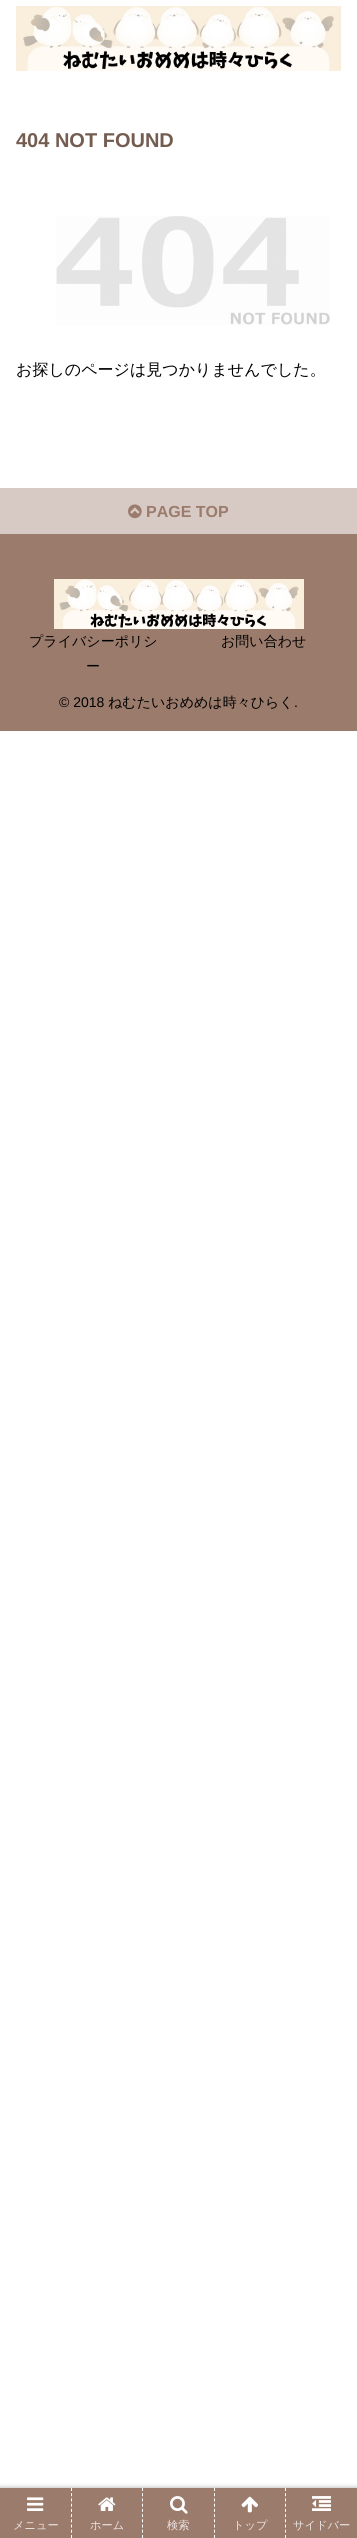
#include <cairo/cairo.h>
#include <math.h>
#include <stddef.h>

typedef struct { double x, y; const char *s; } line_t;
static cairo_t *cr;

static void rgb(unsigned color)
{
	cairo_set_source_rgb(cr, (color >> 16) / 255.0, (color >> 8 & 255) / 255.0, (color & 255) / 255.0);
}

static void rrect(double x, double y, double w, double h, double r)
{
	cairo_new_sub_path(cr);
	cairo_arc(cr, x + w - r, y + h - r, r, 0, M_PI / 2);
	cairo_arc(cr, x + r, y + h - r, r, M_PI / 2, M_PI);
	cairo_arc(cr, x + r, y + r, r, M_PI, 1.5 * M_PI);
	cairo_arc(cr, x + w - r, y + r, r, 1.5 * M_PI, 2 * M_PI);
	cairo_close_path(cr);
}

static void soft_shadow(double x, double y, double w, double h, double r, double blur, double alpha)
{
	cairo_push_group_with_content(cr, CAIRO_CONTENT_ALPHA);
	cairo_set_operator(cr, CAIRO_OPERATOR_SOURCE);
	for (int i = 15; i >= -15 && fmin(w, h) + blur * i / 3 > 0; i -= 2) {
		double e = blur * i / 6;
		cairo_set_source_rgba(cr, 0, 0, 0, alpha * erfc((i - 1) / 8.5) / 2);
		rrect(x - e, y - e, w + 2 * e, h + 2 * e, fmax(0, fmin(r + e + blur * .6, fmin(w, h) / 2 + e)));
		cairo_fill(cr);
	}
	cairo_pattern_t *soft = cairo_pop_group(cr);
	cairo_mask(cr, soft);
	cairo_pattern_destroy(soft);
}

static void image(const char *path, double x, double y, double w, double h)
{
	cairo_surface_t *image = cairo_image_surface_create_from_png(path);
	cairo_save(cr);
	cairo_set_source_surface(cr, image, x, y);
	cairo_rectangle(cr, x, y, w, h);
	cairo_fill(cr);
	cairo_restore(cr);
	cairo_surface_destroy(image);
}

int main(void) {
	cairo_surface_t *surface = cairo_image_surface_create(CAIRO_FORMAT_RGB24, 357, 2538);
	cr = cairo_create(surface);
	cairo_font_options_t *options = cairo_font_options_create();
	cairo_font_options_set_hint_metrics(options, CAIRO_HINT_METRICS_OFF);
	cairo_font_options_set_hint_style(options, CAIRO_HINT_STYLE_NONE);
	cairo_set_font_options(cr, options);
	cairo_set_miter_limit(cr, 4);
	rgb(0xffffff);
	cairo_paint(cr);
	image("img/1.png", 16, 6, 325, 65);
	image("img/2.png", 56, 216, 274, 109);
	rgb(0xd7cac4);
	cairo_rectangle(cr, 0, 488, 357, 46);
	cairo_fill(cr);
	image("img/3.png", 128, 504, 14, 15);
	rgb(0x9b7b6c);
	cairo_rectangle(cr, 0, 534, 357, 197);
	cairo_fill(cr);
	image("img/4.png", 54, 579, 250, 50);
	rgb(0xa9a9a9);
	soft_shadow(0, 2488, 357, 50, 0, 2.5, 1);
	rgb(0x9b7b6c);
	cairo_rectangle(cr, 0, 2488, 357, 50);
	cairo_fill(cr);
	cairo_new_path(cr);
	cairo_move_to(cr, 71.5, 2488);
	cairo_line_to(cr, 71.5, 2538);
	rgb(0xffffff);
	cairo_set_line_width(cr, 1);
	cairo_set_dash(cr, (double[]){3, 2.22}, 2, 0);
	cairo_stroke(cr);
	image("img/5.png", 27, 2497, 17, 14);
	cairo_new_path(cr);
	cairo_move_to(cr, 142.5, 2488);
	cairo_line_to(cr, 142.5, 2538);
	cairo_stroke(cr);
	image("img/6.png", 98, 2497, 18, 14);
	cairo_new_path(cr);
	cairo_move_to(cr, 214.5, 2488);
	cairo_line_to(cr, 214.5, 2538);
	cairo_stroke(cr);
	image("img/7.png", 170, 2496, 18, 18);
	cairo_new_path(cr);
	cairo_move_to(cr, 285.5, 2488);
	cairo_line_to(cr, 285.5, 2538);
	cairo_stroke(cr);
	image("img/8.png", 241, 2496, 17, 17);
	image("img/9.png", 312, 2496, 19, 15);
	cairo_select_font_face(cr, "Liberation Sans", CAIRO_FONT_SLANT_NORMAL, CAIRO_FONT_WEIGHT_BOLD);
	cairo_set_font_size(cr, 20);
	rgb(0x745c51);
	cairo_move_to(cr, 16, 147);
	cairo_show_text(cr, "404 NOT FOUND");
	cairo_select_font_face(cr, "WenQuanYi Zen Hei Medium", CAIRO_FONT_SLANT_NORMAL, CAIRO_FONT_WEIGHT_NORMAL);
	cairo_set_font_size(cr, 16);
	rgb(0x000000);
	cairo_move_to(cr, 16, 375);
	cairo_show_text(cr, "お探しのページは見つかりませんでした。");
	cairo_select_font_face(cr, "Liberation Sans", CAIRO_FONT_SLANT_NORMAL, CAIRO_FONT_WEIGHT_BOLD);
	rgb(0x9b7b6c);
	cairo_move_to(cr, 146, 517);
	cairo_show_text(cr, "PAGE TOP");
	cairo_select_font_face(cr, "WenQuanYi Zen Hei Medium", CAIRO_FONT_SLANT_NORMAL, CAIRO_FONT_WEIGHT_NORMAL);
	cairo_set_font_size(cr, 14);
	rgb(0x000000);
	{
		static const line_t items[] = {
			{29, 646, "プライバシーポリシ"},
			{86, 671, "ー"},
			{221, 646, "お問い合わせ"},
		};
		for (size_t i = 0; i < sizeof items / sizeof *items; i++) {
			cairo_move_to(cr, items[i].x, items[i].y);
			cairo_show_text(cr, items[i].s);
		}
	}
	cairo_select_font_face(cr, "Liberation Sans", CAIRO_FONT_SLANT_NORMAL, CAIRO_FONT_WEIGHT_NORMAL);
	cairo_move_to(cr, 59, 707);
	cairo_show_text(cr, "© 2018");
	cairo_select_font_face(cr, "WenQuanYi Zen Hei Medium", CAIRO_FONT_SLANT_NORMAL, CAIRO_FONT_WEIGHT_NORMAL);
	cairo_move_to(cr, 108, 707);
	cairo_show_text(cr, "ねむたいおめめは時々ひらく");
	cairo_select_font_face(cr, "Liberation Sans", CAIRO_FONT_SLANT_NORMAL, CAIRO_FONT_WEIGHT_NORMAL);
	cairo_move_to(cr, 294, 707);
	cairo_show_text(cr, ".");
	cairo_select_font_face(cr, "WenQuanYi Zen Hei Medium", CAIRO_FONT_SLANT_NORMAL, CAIRO_FONT_WEIGHT_NORMAL);
	cairo_set_font_size(cr, 11.25);
	rgb(0xebe5e2);
	{
		static const line_t items[] = {
			{13, 2529, "メニュー"},
			{90, 2529, "ホーム"},
			{167, 2529, "検索"},
			{233, 2529, "トップ"},
			{293, 2529, "サイドバー"},
		};
		for (size_t i = 0; i < sizeof items / sizeof *items; i++) {
			cairo_move_to(cr, items[i].x, items[i].y);
			cairo_show_text(cr, items[i].s);
		}
	}
	cairo_surface_write_to_png(surface, "page.png");
	cairo_font_options_destroy(options);
	cairo_destroy(cr);
	cairo_surface_destroy(surface);
	return 0;
}
